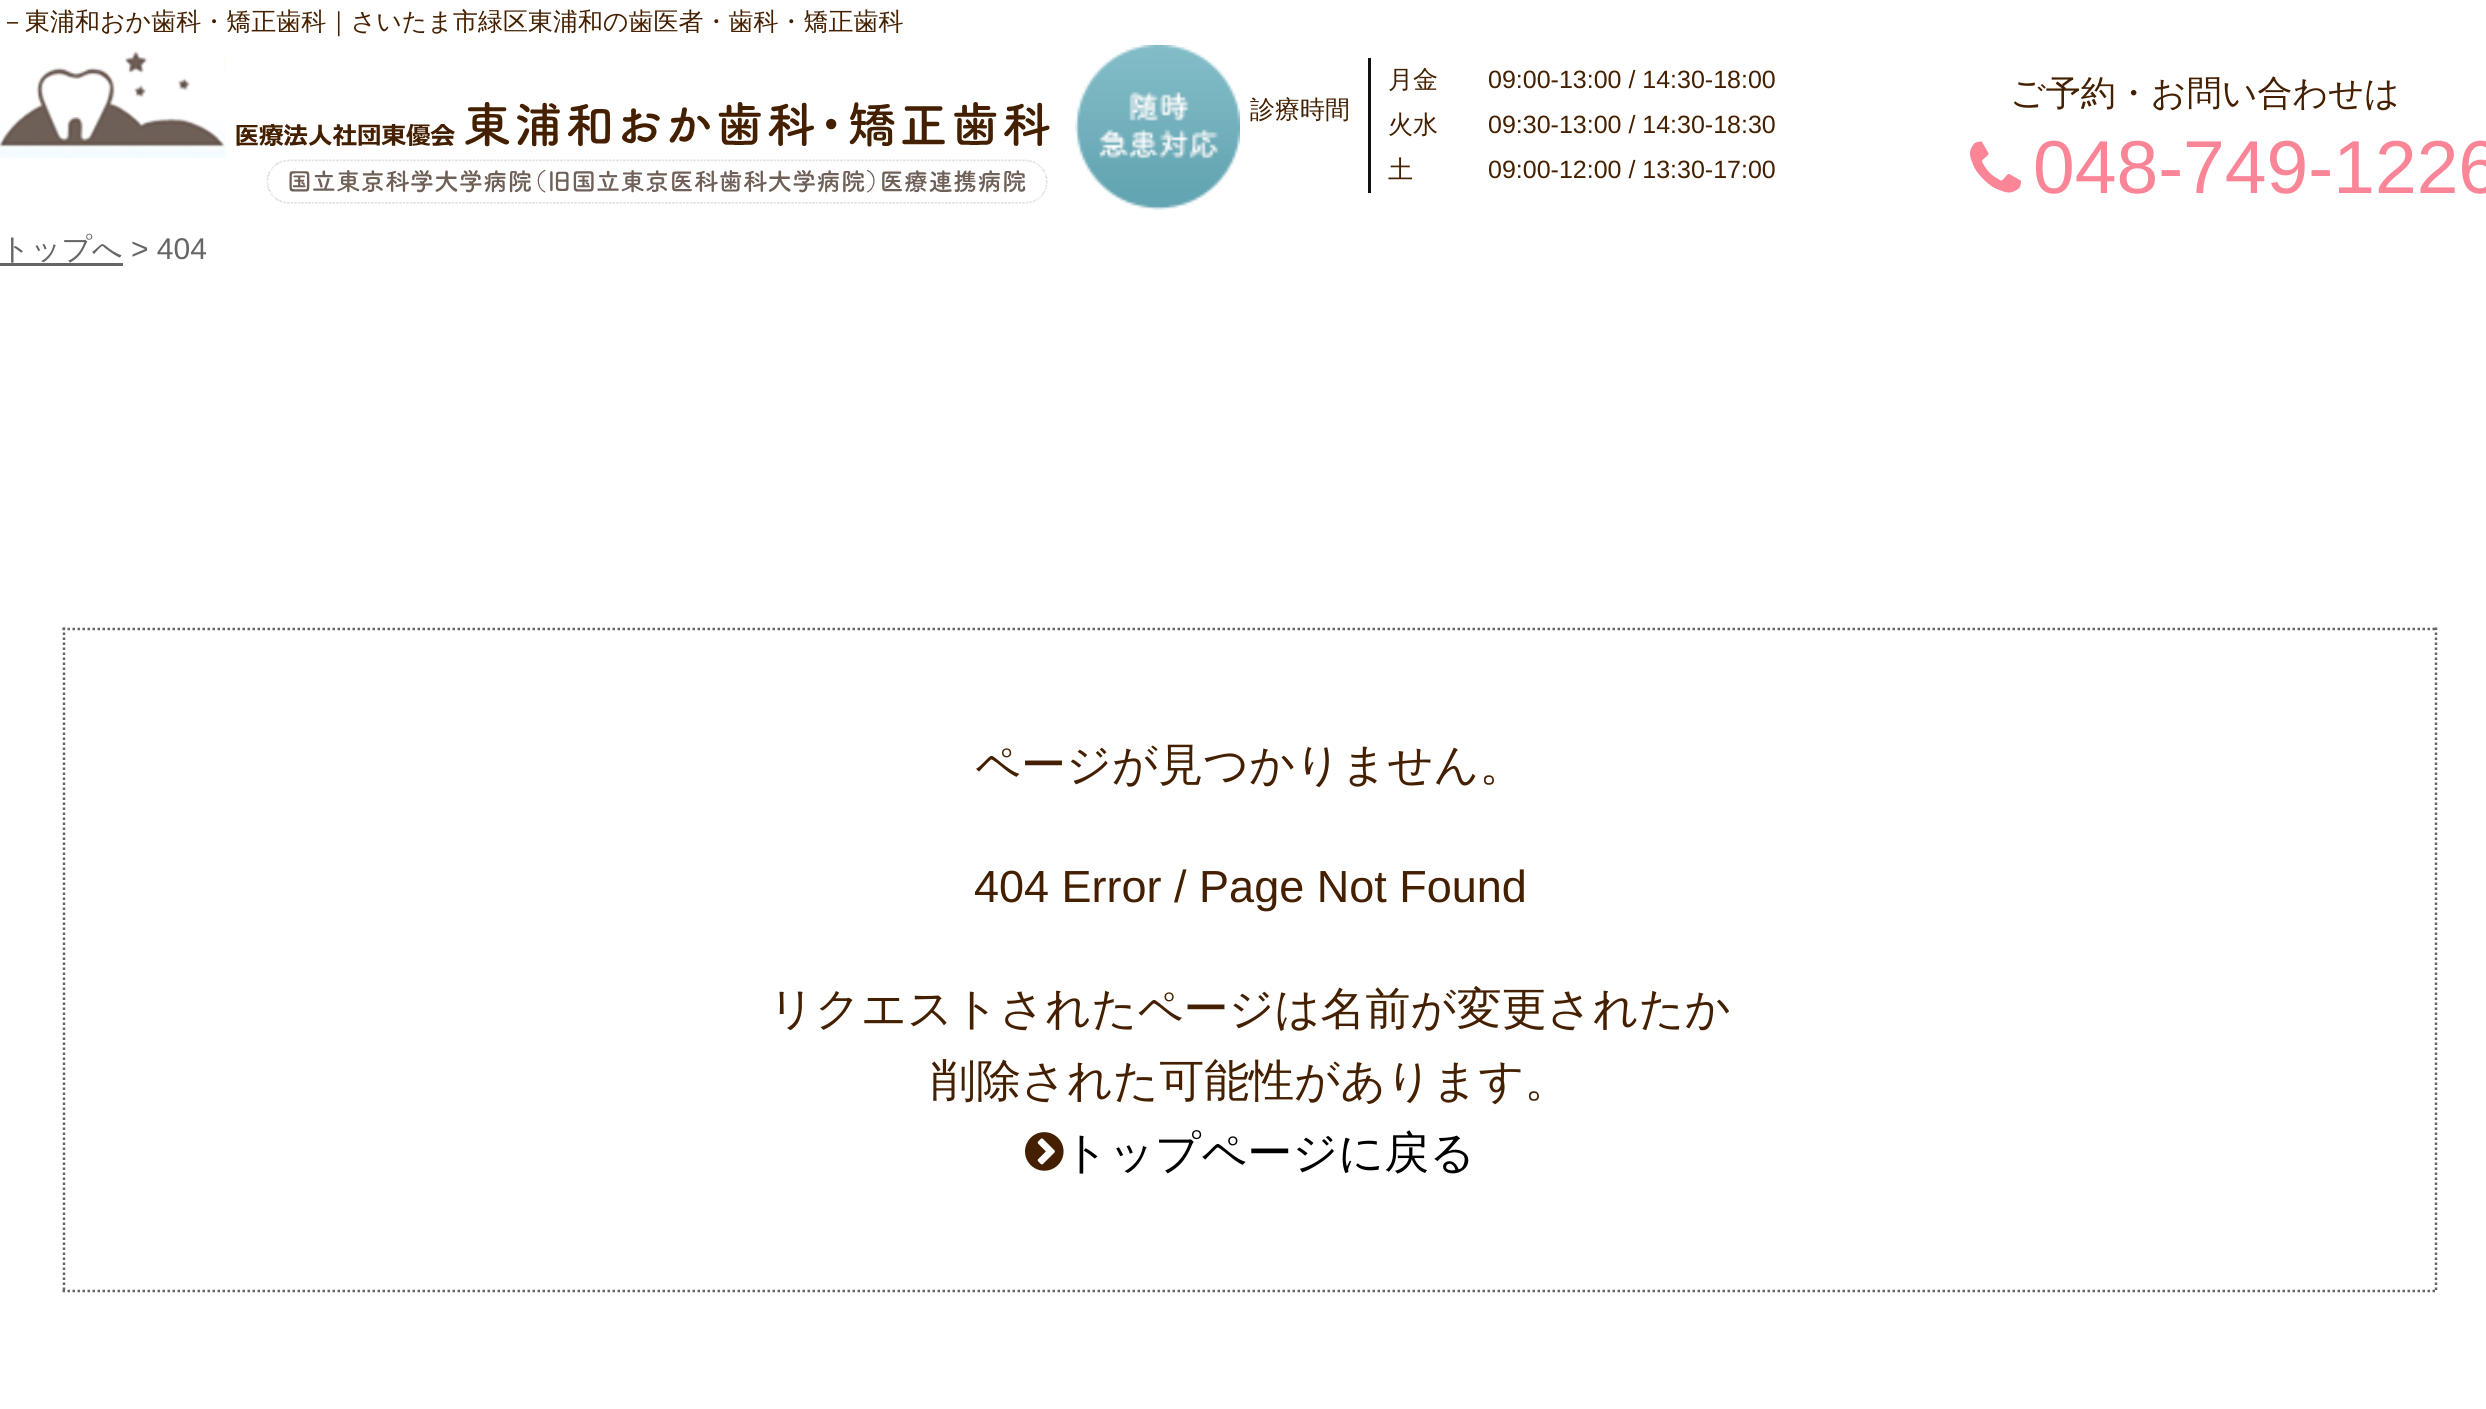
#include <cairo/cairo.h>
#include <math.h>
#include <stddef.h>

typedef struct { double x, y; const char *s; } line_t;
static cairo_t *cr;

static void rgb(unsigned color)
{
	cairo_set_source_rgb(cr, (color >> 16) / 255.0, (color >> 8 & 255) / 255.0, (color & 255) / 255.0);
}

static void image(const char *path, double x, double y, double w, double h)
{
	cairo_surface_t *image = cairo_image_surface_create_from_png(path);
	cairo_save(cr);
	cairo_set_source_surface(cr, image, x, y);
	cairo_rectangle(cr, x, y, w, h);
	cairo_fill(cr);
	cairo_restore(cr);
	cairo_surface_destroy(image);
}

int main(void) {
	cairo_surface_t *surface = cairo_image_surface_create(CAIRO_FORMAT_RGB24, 2486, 1409);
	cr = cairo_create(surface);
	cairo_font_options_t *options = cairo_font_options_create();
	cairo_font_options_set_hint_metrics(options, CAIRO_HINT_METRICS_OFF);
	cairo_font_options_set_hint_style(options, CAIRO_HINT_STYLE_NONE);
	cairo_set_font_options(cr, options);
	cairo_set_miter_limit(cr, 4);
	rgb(0xffffff);
	cairo_paint(cr);
	image("img/1.png", 0, 51, 1050, 153);
	image("img/2.png", 1075, 45, 165, 165);
	rgb(0x111111);
	cairo_rectangle(cr, 1368, 58, 3, 135);
	cairo_fill(cr);
	image("img/3.png", 1970, 141, 51, 52);
	rgb(0x666666);
	cairo_rectangle(cr, 0, 263, 123, 3);
	cairo_fill(cr);
	cairo_new_path(cr);
	cairo_move_to(cr, 62.5, 629);
	cairo_line_to(cr, 2437.5, 629);
	cairo_set_line_width(cr, 2.5);
	cairo_set_dash(cr, (double[]){2.5, 2.5}, 2, 0);
	cairo_stroke(cr);
	cairo_new_path(cr);
	cairo_move_to(cr, 2436, 627.5);
	cairo_line_to(cr, 2436, 1292.5);
	cairo_stroke(cr);
	cairo_new_path(cr);
	cairo_move_to(cr, 62.5, 1291);
	cairo_line_to(cr, 2437.5, 1291);
	cairo_stroke(cr);
	cairo_new_path(cr);
	cairo_move_to(cr, 64, 627.5);
	cairo_line_to(cr, 64, 1292.5);
	cairo_stroke(cr);
	image("img/4.png", 1025, 1132, 39, 39);
	cairo_select_font_face(cr, "WenQuanYi Zen Hei Medium", CAIRO_FONT_SLANT_NORMAL, CAIRO_FONT_WEIGHT_NORMAL);
	cairo_set_font_size(cr, 25);
	rgb(0x442000);
	{
		static const line_t items[] = {
			{0, 30, "－東浦和おか歯科・矯正歯科｜さいたま市緑区東浦和の歯医者・歯科・矯正歯科"},
			{1250, 118, "診療時間"},
			{1388, 88, "月金"},
		};
		for (size_t i = 0; i < sizeof items / sizeof *items; i++) {
			cairo_move_to(cr, items[i].x, items[i].y);
			cairo_show_text(cr, items[i].s);
		}
	}
	cairo_select_font_face(cr, "Liberation Sans", CAIRO_FONT_SLANT_NORMAL, CAIRO_FONT_WEIGHT_NORMAL);
	cairo_move_to(cr, 1488, 88);
	cairo_show_text(cr, "09:00-13:00 / 14:30-18:00");
	cairo_select_font_face(cr, "WenQuanYi Zen Hei Medium", CAIRO_FONT_SLANT_NORMAL, CAIRO_FONT_WEIGHT_NORMAL);
	cairo_move_to(cr, 1388, 133);
	cairo_show_text(cr, "火水");
	cairo_select_font_face(cr, "Liberation Sans", CAIRO_FONT_SLANT_NORMAL, CAIRO_FONT_WEIGHT_NORMAL);
	cairo_move_to(cr, 1488, 133);
	cairo_show_text(cr, "09:30-13:00 / 14:30-18:30");
	cairo_select_font_face(cr, "WenQuanYi Zen Hei Medium", CAIRO_FONT_SLANT_NORMAL, CAIRO_FONT_WEIGHT_NORMAL);
	cairo_move_to(cr, 1388, 178);
	cairo_show_text(cr, "土");
	cairo_select_font_face(cr, "Liberation Sans", CAIRO_FONT_SLANT_NORMAL, CAIRO_FONT_WEIGHT_NORMAL);
	cairo_move_to(cr, 1488, 178);
	cairo_show_text(cr, "09:00-12:00 / 13:30-17:00");
	cairo_select_font_face(cr, "WenQuanYi Zen Hei Medium", CAIRO_FONT_SLANT_NORMAL, CAIRO_FONT_WEIGHT_NORMAL);
	cairo_set_font_size(cr, 35);
	cairo_move_to(cr, 2010, 105);
	cairo_show_text(cr, "ご予約・お問い合わせは");
	cairo_select_font_face(cr, "Liberation Sans", CAIRO_FONT_SLANT_NORMAL, CAIRO_FONT_WEIGHT_NORMAL);
	cairo_set_font_size(cr, 75);
	rgb(0xfa8597);
	cairo_move_to(cr, 2033, 193);
	cairo_show_text(cr, "048-749-1226");
	cairo_select_font_face(cr, "WenQuanYi Zen Hei Medium", CAIRO_FONT_SLANT_NORMAL, CAIRO_FONT_WEIGHT_NORMAL);
	cairo_set_font_size(cr, 30);
	rgb(0x666666);
	cairo_move_to(cr, 0, 259);
	cairo_show_text(cr, "トップへ");
	cairo_select_font_face(cr, "Liberation Sans", CAIRO_FONT_SLANT_NORMAL, CAIRO_FONT_WEIGHT_NORMAL);
	cairo_move_to(cr, 131, 259);
	cairo_show_text(cr, "> 404");
	cairo_select_font_face(cr, "WenQuanYi Zen Hei Medium", CAIRO_FONT_SLANT_NORMAL, CAIRO_FONT_WEIGHT_NORMAL);
	cairo_set_font_size(cr, 45);
	rgb(0x442000);
	cairo_move_to(cr, 975, 780);
	cairo_show_text(cr, "ページが見つかりません。");
	cairo_select_font_face(cr, "Liberation Sans", CAIRO_FONT_SLANT_NORMAL, CAIRO_FONT_WEIGHT_NORMAL);
	cairo_move_to(cr, 974, 902);
	cairo_show_text(cr, "404 Error / Page Not Found");
	cairo_select_font_face(cr, "WenQuanYi Zen Hei Medium", CAIRO_FONT_SLANT_NORMAL, CAIRO_FONT_WEIGHT_NORMAL);
	cairo_move_to(cr, 769, 1024);
	cairo_show_text(cr, "リクエストされたページは名前が変更されたか");
	cairo_move_to(cr, 931, 1096);
	cairo_show_text(cr, "削除された可能性があります。");
	rgb(0x000000);
	cairo_move_to(cr, 1063, 1168);
	cairo_show_text(cr, "トップページに戻る");
	cairo_surface_write_to_png(surface, "page.png");
	cairo_font_options_destroy(options);
	cairo_destroy(cr);
	cairo_surface_destroy(surface);
	return 0;
}
